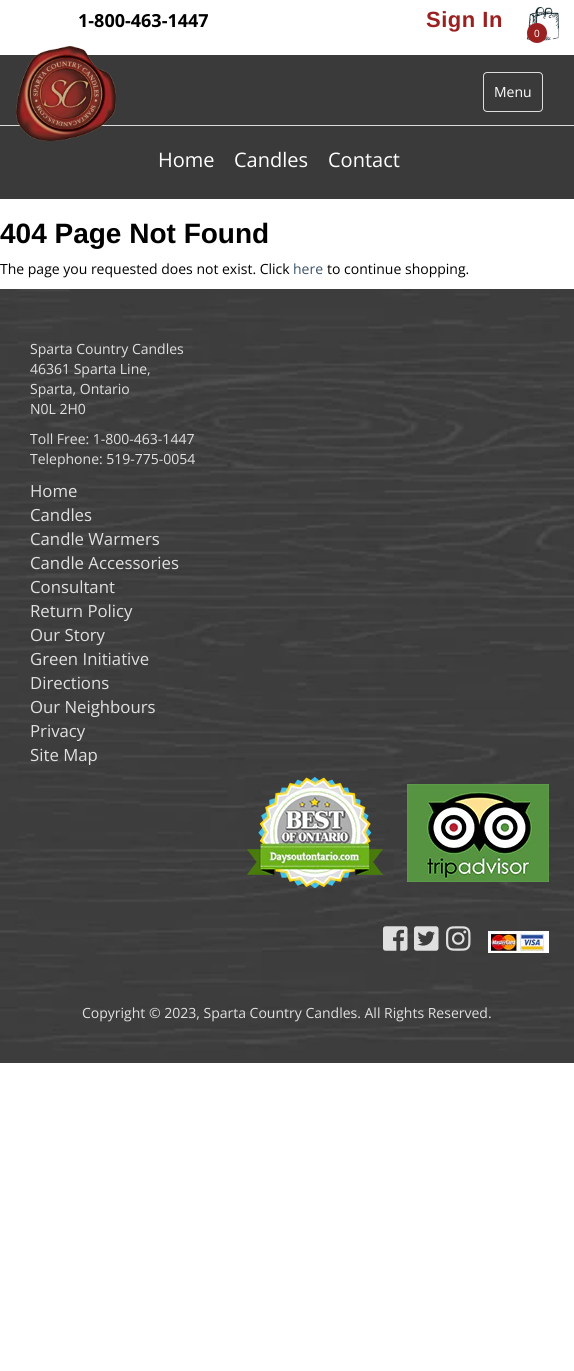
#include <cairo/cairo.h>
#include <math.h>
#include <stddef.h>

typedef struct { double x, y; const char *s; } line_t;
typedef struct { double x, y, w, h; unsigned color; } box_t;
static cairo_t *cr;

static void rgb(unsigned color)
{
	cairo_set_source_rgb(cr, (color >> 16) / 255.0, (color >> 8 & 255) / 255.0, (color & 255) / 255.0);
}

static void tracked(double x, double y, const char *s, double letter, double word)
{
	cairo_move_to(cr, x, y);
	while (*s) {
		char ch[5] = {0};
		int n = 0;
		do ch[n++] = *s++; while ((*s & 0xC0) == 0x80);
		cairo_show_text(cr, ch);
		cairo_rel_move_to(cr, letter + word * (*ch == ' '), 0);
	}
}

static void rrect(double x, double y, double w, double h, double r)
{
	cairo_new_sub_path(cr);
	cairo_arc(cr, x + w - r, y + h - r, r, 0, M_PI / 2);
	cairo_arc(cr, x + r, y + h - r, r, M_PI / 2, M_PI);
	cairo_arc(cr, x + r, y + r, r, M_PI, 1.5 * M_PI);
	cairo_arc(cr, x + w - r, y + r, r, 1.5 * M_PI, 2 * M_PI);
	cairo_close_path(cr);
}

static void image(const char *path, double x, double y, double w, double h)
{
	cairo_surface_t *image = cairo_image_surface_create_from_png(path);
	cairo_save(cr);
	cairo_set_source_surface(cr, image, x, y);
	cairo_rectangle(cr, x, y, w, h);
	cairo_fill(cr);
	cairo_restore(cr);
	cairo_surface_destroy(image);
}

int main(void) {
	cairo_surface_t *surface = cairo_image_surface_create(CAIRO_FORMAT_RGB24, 574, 1371);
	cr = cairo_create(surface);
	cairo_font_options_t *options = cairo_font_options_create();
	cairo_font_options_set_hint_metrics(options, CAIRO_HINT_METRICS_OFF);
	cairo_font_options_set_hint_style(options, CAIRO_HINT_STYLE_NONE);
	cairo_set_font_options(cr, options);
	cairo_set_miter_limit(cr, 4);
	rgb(0xffffff);
	cairo_paint(cr);
	image("img/1.png", 527, 7, 32, 34);
	rgb(0x9b2121);
	cairo_arc(cr, 537, 33, 10, 0, 2 * M_PI);
	cairo_fill(cr);
	{
		static const box_t items[] = {
			{0, 55, 574, 70, 0x3a3a3a},
			{0, 126, 574, 73, 0x3a3a3a},
			{0, 125, 574, 1, 0xdddddd},
		};
		for (size_t i = 0; i < sizeof items / sizeof *items; i++) {
			rgb(items[i].color);
			cairo_rectangle(cr, items[i].x, items[i].y, items[i].w, items[i].h);
			cairo_fill(cr);
		}
	}
	image("img/2.png", 16, 46, 100, 95);
	rrect(483.5, 72.5, 59, 39, 3.5);
	cairo_set_line_width(cr, 1);
	cairo_stroke(cr);
	image("img/3.png", 0, 289, 574, 774);
	image("img/4.png", 247, 777, 136, 111);
	image("img/5.png", 407, 784, 142, 98);
	image("img/6.png", 383, 926, 25, 25);
	image("img/7.png", 414, 926, 25, 25);
	image("img/8.png", 446, 926, 25, 25);
	image("img/9.png", 488, 931, 61, 22);
	cairo_select_font_face(cr, "Open Sans", CAIRO_FONT_SLANT_NORMAL, CAIRO_FONT_WEIGHT_BOLD);
	cairo_set_font_size(cr, 18);
	rgb(0x000000);
	cairo_move_to(cr, 78, 27);
	cairo_show_text(cr, "1-800-463-1447");
	cairo_select_font_face(cr, "Liberation Sans", CAIRO_FONT_SLANT_NORMAL, CAIRO_FONT_WEIGHT_BOLD);
	cairo_set_font_size(cr, 22);
	rgb(0x9b2121);
	tracked(426, 27, "Sign In", 0.5, 0);
	cairo_select_font_face(cr, "Open Sans", CAIRO_FONT_SLANT_NORMAL, CAIRO_FONT_WEIGHT_NORMAL);
	cairo_set_font_size(cr, 10);
	rgb(0xffffff);
	cairo_move_to(cr, 534, 37);
	cairo_show_text(cr, "0");
	cairo_set_font_size(cr, 14);
	cairo_move_to(cr, 494, 97);
	cairo_show_text(cr, "Menu");
	cairo_set_font_size(cr, 20);
	{
		static const line_t items[] = {
			{158, 167, "Home"},
			{234, 167, "Candles"},
			{328, 167, "Contact"},
		};
		for (size_t i = 0; i < sizeof items / sizeof *items; i++) {
			cairo_move_to(cr, items[i].x, items[i].y);
			cairo_show_text(cr, items[i].s);
		}
	}
	cairo_select_font_face(cr, "Liberation Sans", CAIRO_FONT_SLANT_NORMAL, CAIRO_FONT_WEIGHT_BOLD);
	cairo_set_font_size(cr, 28);
	rgb(0x000000);
	cairo_move_to(cr, 0, 243);
	cairo_show_text(cr, "404 Page Not Found");
	cairo_select_font_face(cr, "Open Sans", CAIRO_FONT_SLANT_NORMAL, CAIRO_FONT_WEIGHT_NORMAL);
	cairo_set_font_size(cr, 14);
	cairo_move_to(cr, 0, 274);
	cairo_show_text(cr, "The page you requested does not exist. Click");
	rgb(0x3a526a);
	cairo_move_to(cr, 293, 274);
	cairo_show_text(cr, "here");
	rgb(0x000000);
	cairo_move_to(cr, 327, 274);
	cairo_show_text(cr, "to continue shopping.");
	rgb(0xe0e0e0);
	{
		static const line_t items[] = {
			{30, 354, "Sparta Country Candles"},
			{30, 374, "46361 Sparta Line,"},
			{30, 394, "Sparta, Ontario"},
			{30, 414, "N0L 2H0"},
			{30, 444, "Toll Free: 1-800-463-1447"},
			{30, 464, "Telephone: 519-775-0054"},
		};
		for (size_t i = 0; i < sizeof items / sizeof *items; i++) {
			cairo_move_to(cr, items[i].x, items[i].y);
			cairo_show_text(cr, items[i].s);
		}
	}
	cairo_set_font_size(cr, 16.75);
	{
		static const line_t items[] = {
			{30, 497, "Home"},
			{30, 521, "Candles"},
			{30, 545, "Candle Warmers"},
			{30, 569, "Candle Accessories"},
			{30, 593, "Consultant"},
			{30, 617, "Return Policy"},
			{30, 641, "Our Story"},
			{30, 665, "Green Initiative"},
			{30, 689, "Directions"},
			{30, 713, "Our Neighbours"},
			{30, 737, "Privacy"},
			{30, 761, "Site Map"},
		};
		for (size_t i = 0; i < sizeof items / sizeof *items; i++) {
			cairo_move_to(cr, items[i].x, items[i].y);
			cairo_show_text(cr, items[i].s);
		}
	}
	cairo_set_font_size(cr, 14);
	cairo_move_to(cr, 82, 1018);
	cairo_show_text(cr, "Copyright © 2023, Sparta Country Candles. All Rights Reserved.");
	cairo_surface_write_to_png(surface, "page.png");
	cairo_font_options_destroy(options);
	cairo_destroy(cr);
	cairo_surface_destroy(surface);
	return 0;
}
